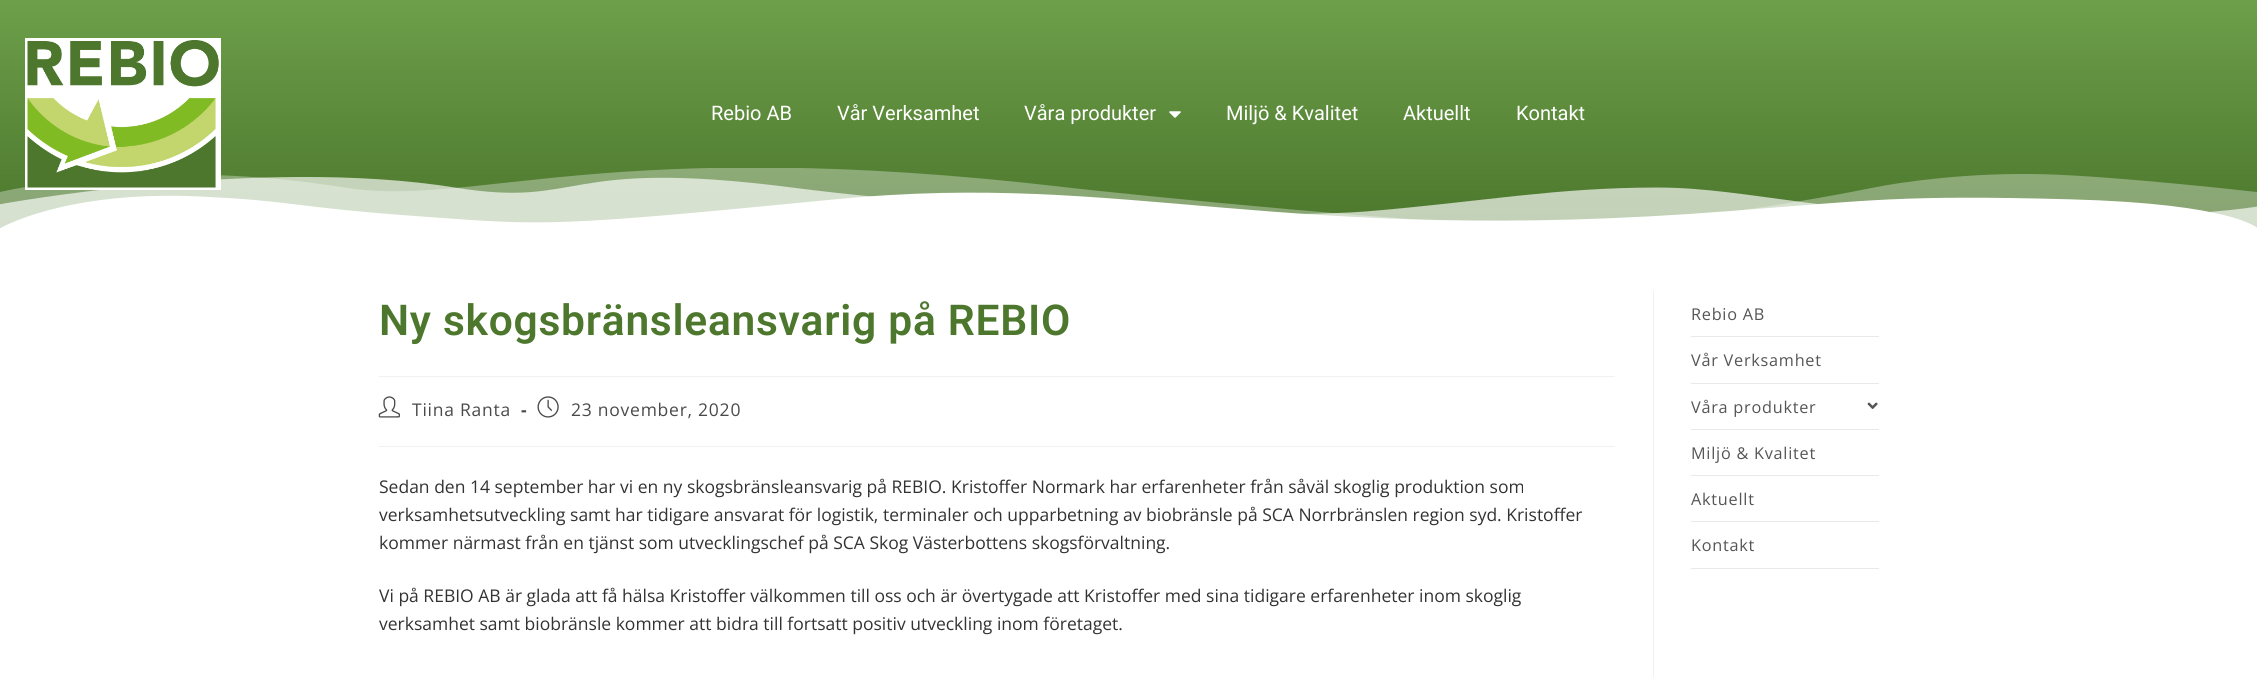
#include <cairo/cairo.h>
#include <math.h>
#include <stddef.h>

typedef struct { double x, y; const char *s; } line_t;
typedef struct { double x, y, w, h; unsigned color; } box_t;
static cairo_t *cr;

static void rgb(unsigned color)
{
	cairo_set_source_rgb(cr, (color >> 16) / 255.0, (color >> 8 & 255) / 255.0, (color & 255) / 255.0);
}

static void tracked(double x, double y, const char *s, double letter, double word)
{
	cairo_move_to(cr, x, y);
	while (*s) {
		char ch[5] = {0};
		int n = 0;
		do ch[n++] = *s++; while ((*s & 0xC0) == 0x80);
		cairo_show_text(cr, ch);
		cairo_rel_move_to(cr, letter + word * (*ch == ' '), 0);
	}
}

static void image(const char *path, double x, double y, double w, double h)
{
	cairo_surface_t *image = cairo_image_surface_create_from_png(path);
	cairo_save(cr);
	cairo_set_source_surface(cr, image, x, y);
	cairo_rectangle(cr, x, y, w, h);
	cairo_fill(cr);
	cairo_restore(cr);
	cairo_surface_destroy(image);
}

int main(void) {
	cairo_surface_t *surface = cairo_image_surface_create(CAIRO_FORMAT_RGB24, 2257, 677);
	cr = cairo_create(surface);
	cairo_font_options_t *options = cairo_font_options_create();
	cairo_font_options_set_hint_metrics(options, CAIRO_HINT_METRICS_OFF);
	cairo_font_options_set_hint_style(options, CAIRO_HINT_STYLE_NONE);
	cairo_set_font_options(cr, options);
	cairo_set_miter_limit(cr, 4);
	cairo_pattern_t *gradient;
	rgb(0xffffff);
	cairo_paint(cr);
	gradient = cairo_pattern_create_linear(1129, 0, 1129, 228);
	cairo_pattern_add_color_stop_rgba(gradient, 0, 0.427, 0.624, 0.29, 1);
	cairo_pattern_add_color_stop_rgba(gradient, 1, 0.298, 0.467, 0.176, 1);
	cairo_set_source(cr, gradient);
	cairo_pattern_destroy(gradient);
	cairo_rectangle(cr, 0, 0, 2257, 228);
	cairo_fill(cr);
	image("img/3.png", 0, 168, 2257, 61);
	rgb(0xffffff);
	cairo_rectangle(cr, 25, 38, 196, 152);
	cairo_fill(cr);
	image("img/1.png", 27, 40, 192, 148);
	image("img/2.png", 1169, 111, 12, 7);
	{
		static const box_t items[] = {
			{1653, 291, 1, 386, 0xf1f1f1},
			{379, 376, 1236, 1, 0xf1f1f1},
			{379, 446, 1236, 1, 0xf1f1f1},
		};
		for (size_t i = 0; i < sizeof items / sizeof *items; i++) {
			rgb(items[i].color);
			cairo_rectangle(cr, items[i].x, items[i].y, items[i].w, items[i].h);
			cairo_fill(cr);
		}
	}
	image("img/4.png", 378, 396, 22, 22);
	image("img/5.png", 537, 396, 22, 22);
	{
		static const box_t items[] = {
			{1691, 336, 188, 1, 0xe9e9e9},
			{1691, 383, 188, 1, 0xe9e9e9},
			{1691, 429, 188, 1, 0xe9e9e9},
		};
		for (size_t i = 0; i < sizeof items / sizeof *items; i++) {
			rgb(items[i].color);
			cairo_rectangle(cr, items[i].x, items[i].y, items[i].w, items[i].h);
			cairo_fill(cr);
		}
	}
	image("img/6.png", 1867, 402, 11, 7);
	{
		static const box_t items[] = {
			{1691, 475, 188, 1, 0xe9e9e9},
			{1691, 521, 188, 1, 0xe9e9e9},
			{1691, 568, 188, 1, 0xe9e9e9},
		};
		for (size_t i = 0; i < sizeof items / sizeof *items; i++) {
			rgb(items[i].color);
			cairo_rectangle(cr, items[i].x, items[i].y, items[i].w, items[i].h);
			cairo_fill(cr);
		}
	}
	cairo_select_font_face(cr, "Roboto", CAIRO_FONT_SLANT_NORMAL, CAIRO_FONT_WEIGHT_NORMAL);
	cairo_set_font_size(cr, 20);
	rgb(0xffffff);
	{
		static const line_t items[] = {
			{711, 120, "Rebio AB"},
			{837, 120, "Vår Verksamhet"},
			{1024, 120, "Våra produkter"},
			{1226, 120, "Miljö & Kvalitet"},
			{1403, 120, "Aktuellt"},
			{1516, 120, "Kontakt"},
		};
		for (size_t i = 0; i < sizeof items / sizeof *items; i++) {
			cairo_move_to(cr, items[i].x, items[i].y);
			cairo_show_text(cr, items[i].s);
		}
	}
	cairo_select_font_face(cr, "Roboto SemiBold", CAIRO_FONT_SLANT_NORMAL, CAIRO_FONT_WEIGHT_NORMAL);
	cairo_set_font_size(cr, 42.5);
	rgb(0x4c772d);
	tracked(379, 335, "Ny skogsbränsleansvarig på REBIO", 0.75, 0);
	cairo_select_font_face(cr, "Open Sans", CAIRO_FONT_SLANT_NORMAL, CAIRO_FONT_WEIGHT_NORMAL);
	cairo_set_font_size(cr, 17.5);
	rgb(0x4a4a4a);
	tracked(412, 416, "Tiina Ranta", 0.75, 0);
	cairo_select_font_face(cr, "Open Sans", CAIRO_FONT_SLANT_NORMAL, CAIRO_FONT_WEIGHT_BOLD);
	tracked(521, 416, "-", 0.75, 0);
	cairo_select_font_face(cr, "Open Sans", CAIRO_FONT_SLANT_NORMAL, CAIRO_FONT_WEIGHT_NORMAL);
	tracked(571, 416, "23 november, 2020", 0.75, 0);
	rgb(0x333333);
	{
		static const line_t items[] = {
			{379, 493, "Sedan den 14 september har vi en ny skogsbränsleansvarig på REBIO. Kristoffer Normark har erfarenheter från såväl skoglig produktion som"},
			{379, 521, "verksamhetsutveckling samt har tidigare ansvarat för logistik, terminaler och upparbetning av biobränsle på SCA Norrbränslen region syd. Kristoffer"},
			{379, 549, "kommer närmast från en tjänst som utvecklingschef på SCA Skog Västerbottens skogsförvaltning."},
			{379, 602, "Vi på REBIO AB är glada att få hälsa Kristoffer välkommen till oss och är övertygade att Kristoffer med sina tidigare erfarenheter inom skoglig"},
			{379, 630, "verksamhet samt biobränsle kommer att bidra till fortsatt positiv utveckling inom företaget."},
		};
		for (size_t i = 0; i < sizeof items / sizeof *items; i++) {
			cairo_move_to(cr, items[i].x, items[i].y);
			cairo_show_text(cr, items[i].s);
		}
	}
	cairo_set_font_size(cr, 16.25);
	rgb(0x555555);
	{
		static const line_t items[] = {
			{1691, 320, "Rebio AB"},
			{1691, 366, "Vår Verksamhet"},
			{1691, 413, "Våra produkter"},
			{1691, 459, "Miljö & Kvalitet"},
			{1691, 505, "Aktuellt"},
			{1691, 551, "Kontakt"},
		};
		for (size_t i = 0; i < sizeof items / sizeof *items; i++) {
			tracked(items[i].x, items[i].y, items[i].s, 0.75, 0);
		}
	}
	cairo_surface_write_to_png(surface, "page.png");
	cairo_font_options_destroy(options);
	cairo_destroy(cr);
	cairo_surface_destroy(surface);
	return 0;
}
